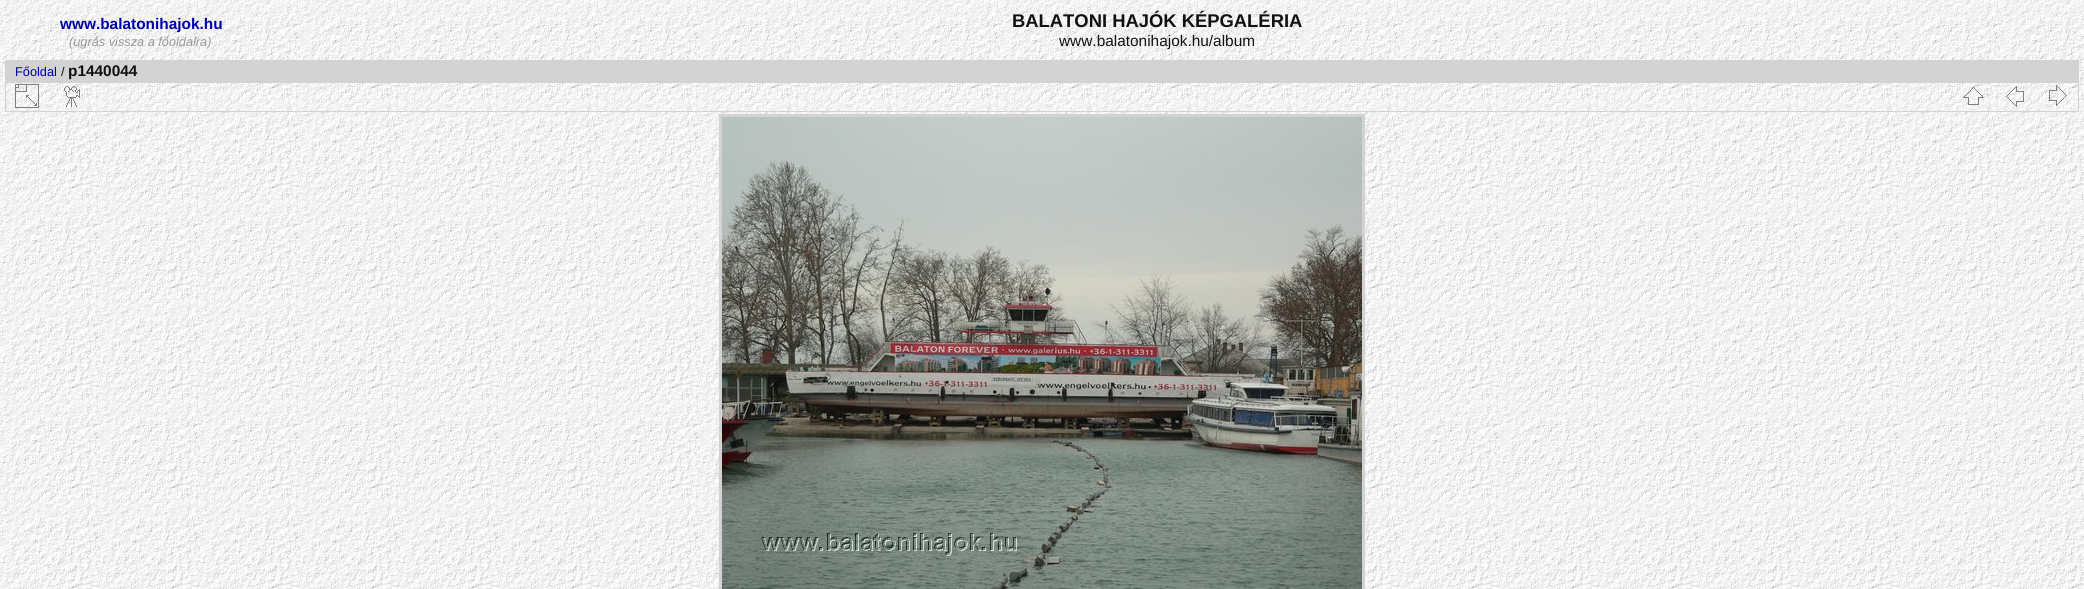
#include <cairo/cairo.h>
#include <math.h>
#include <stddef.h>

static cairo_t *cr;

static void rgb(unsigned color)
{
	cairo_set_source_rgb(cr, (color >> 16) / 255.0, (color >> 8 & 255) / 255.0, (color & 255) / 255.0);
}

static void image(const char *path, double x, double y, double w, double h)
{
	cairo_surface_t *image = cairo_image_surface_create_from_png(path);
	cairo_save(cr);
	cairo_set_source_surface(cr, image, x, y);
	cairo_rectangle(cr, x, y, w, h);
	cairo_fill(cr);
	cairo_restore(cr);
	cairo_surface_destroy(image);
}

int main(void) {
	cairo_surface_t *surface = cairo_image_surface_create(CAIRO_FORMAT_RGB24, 2084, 589);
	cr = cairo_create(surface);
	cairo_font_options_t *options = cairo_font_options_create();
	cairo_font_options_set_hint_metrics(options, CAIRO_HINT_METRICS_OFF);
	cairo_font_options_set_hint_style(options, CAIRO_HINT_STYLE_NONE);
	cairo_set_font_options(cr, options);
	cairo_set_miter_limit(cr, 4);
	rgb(0xffffff);
	cairo_paint(cr);
	image("img/1.png", 0, 0, 2084, 589);
	rgb(0xd3d3d3);
	cairo_rectangle(cr, 5, 60, 2074, 22);
	cairo_fill(cr);
	cairo_rectangle(cr, 5.5, 82.5, 2073, 29);
	cairo_set_line_width(cr, 1);
	cairo_stroke(cr);
	image("img/2.png", 15, 84, 24, 24);
	image("img/3.png", 64, 86, 16, 21);
	image("img/4.png", 1963, 87, 21, 18);
	image("img/5.png", 2006, 86, 18, 21);
	image("img/6.png", 2049, 85, 18, 21);
	cairo_rectangle(cr, 720.5, 115.5, 643, 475);
	cairo_set_line_width(cr, 3);
	cairo_stroke(cr);
	image("img/7.png", 722, 117, 640, 472);
	cairo_select_font_face(cr, "Liberation Sans", CAIRO_FONT_SLANT_NORMAL, CAIRO_FONT_WEIGHT_BOLD);
	cairo_set_font_size(cr, 15.4);
	rgb(0x0000aa);
	cairo_move_to(cr, 60, 29);
	cairo_show_text(cr, "www.balatonihajok.hu");
	cairo_select_font_face(cr, "Liberation Sans", CAIRO_FONT_SLANT_ITALIC, CAIRO_FONT_WEIGHT_NORMAL);
	cairo_set_font_size(cr, 12.75);
	rgb(0x999999);
	cairo_move_to(cr, 69, 46);
	cairo_show_text(cr, "(ugrás vissza a főoldalra)");
	cairo_select_font_face(cr, "Liberation Sans", CAIRO_FONT_SLANT_NORMAL, CAIRO_FONT_WEIGHT_BOLD);
	cairo_set_font_size(cr, 18.4);
	rgb(0x111111);
	cairo_move_to(cr, 1012, 27);
	cairo_show_text(cr, "BALATONI HAJÓK KÉPGALÉRIA");
	cairo_select_font_face(cr, "Liberation Sans", CAIRO_FONT_SLANT_NORMAL, CAIRO_FONT_WEIGHT_NORMAL);
	cairo_set_font_size(cr, 15.4);
	cairo_move_to(cr, 1059, 46);
	cairo_show_text(cr, "www.balatonihajok.hu/album");
	cairo_set_font_size(cr, 12.75);
	rgb(0x0000aa);
	cairo_move_to(cr, 15, 76);
	cairo_show_text(cr, "Főoldal");
	rgb(0x111111);
	cairo_move_to(cr, 61, 76);
	cairo_show_text(cr, "/");
	cairo_select_font_face(cr, "Liberation Sans", CAIRO_FONT_SLANT_NORMAL, CAIRO_FONT_WEIGHT_BOLD);
	cairo_set_font_size(cr, 15.4);
	cairo_move_to(cr, 68, 76);
	cairo_show_text(cr, "p1440044");
	cairo_surface_write_to_png(surface, "page.png");
	cairo_font_options_destroy(options);
	cairo_destroy(cr);
	cairo_surface_destroy(surface);
	return 0;
}
